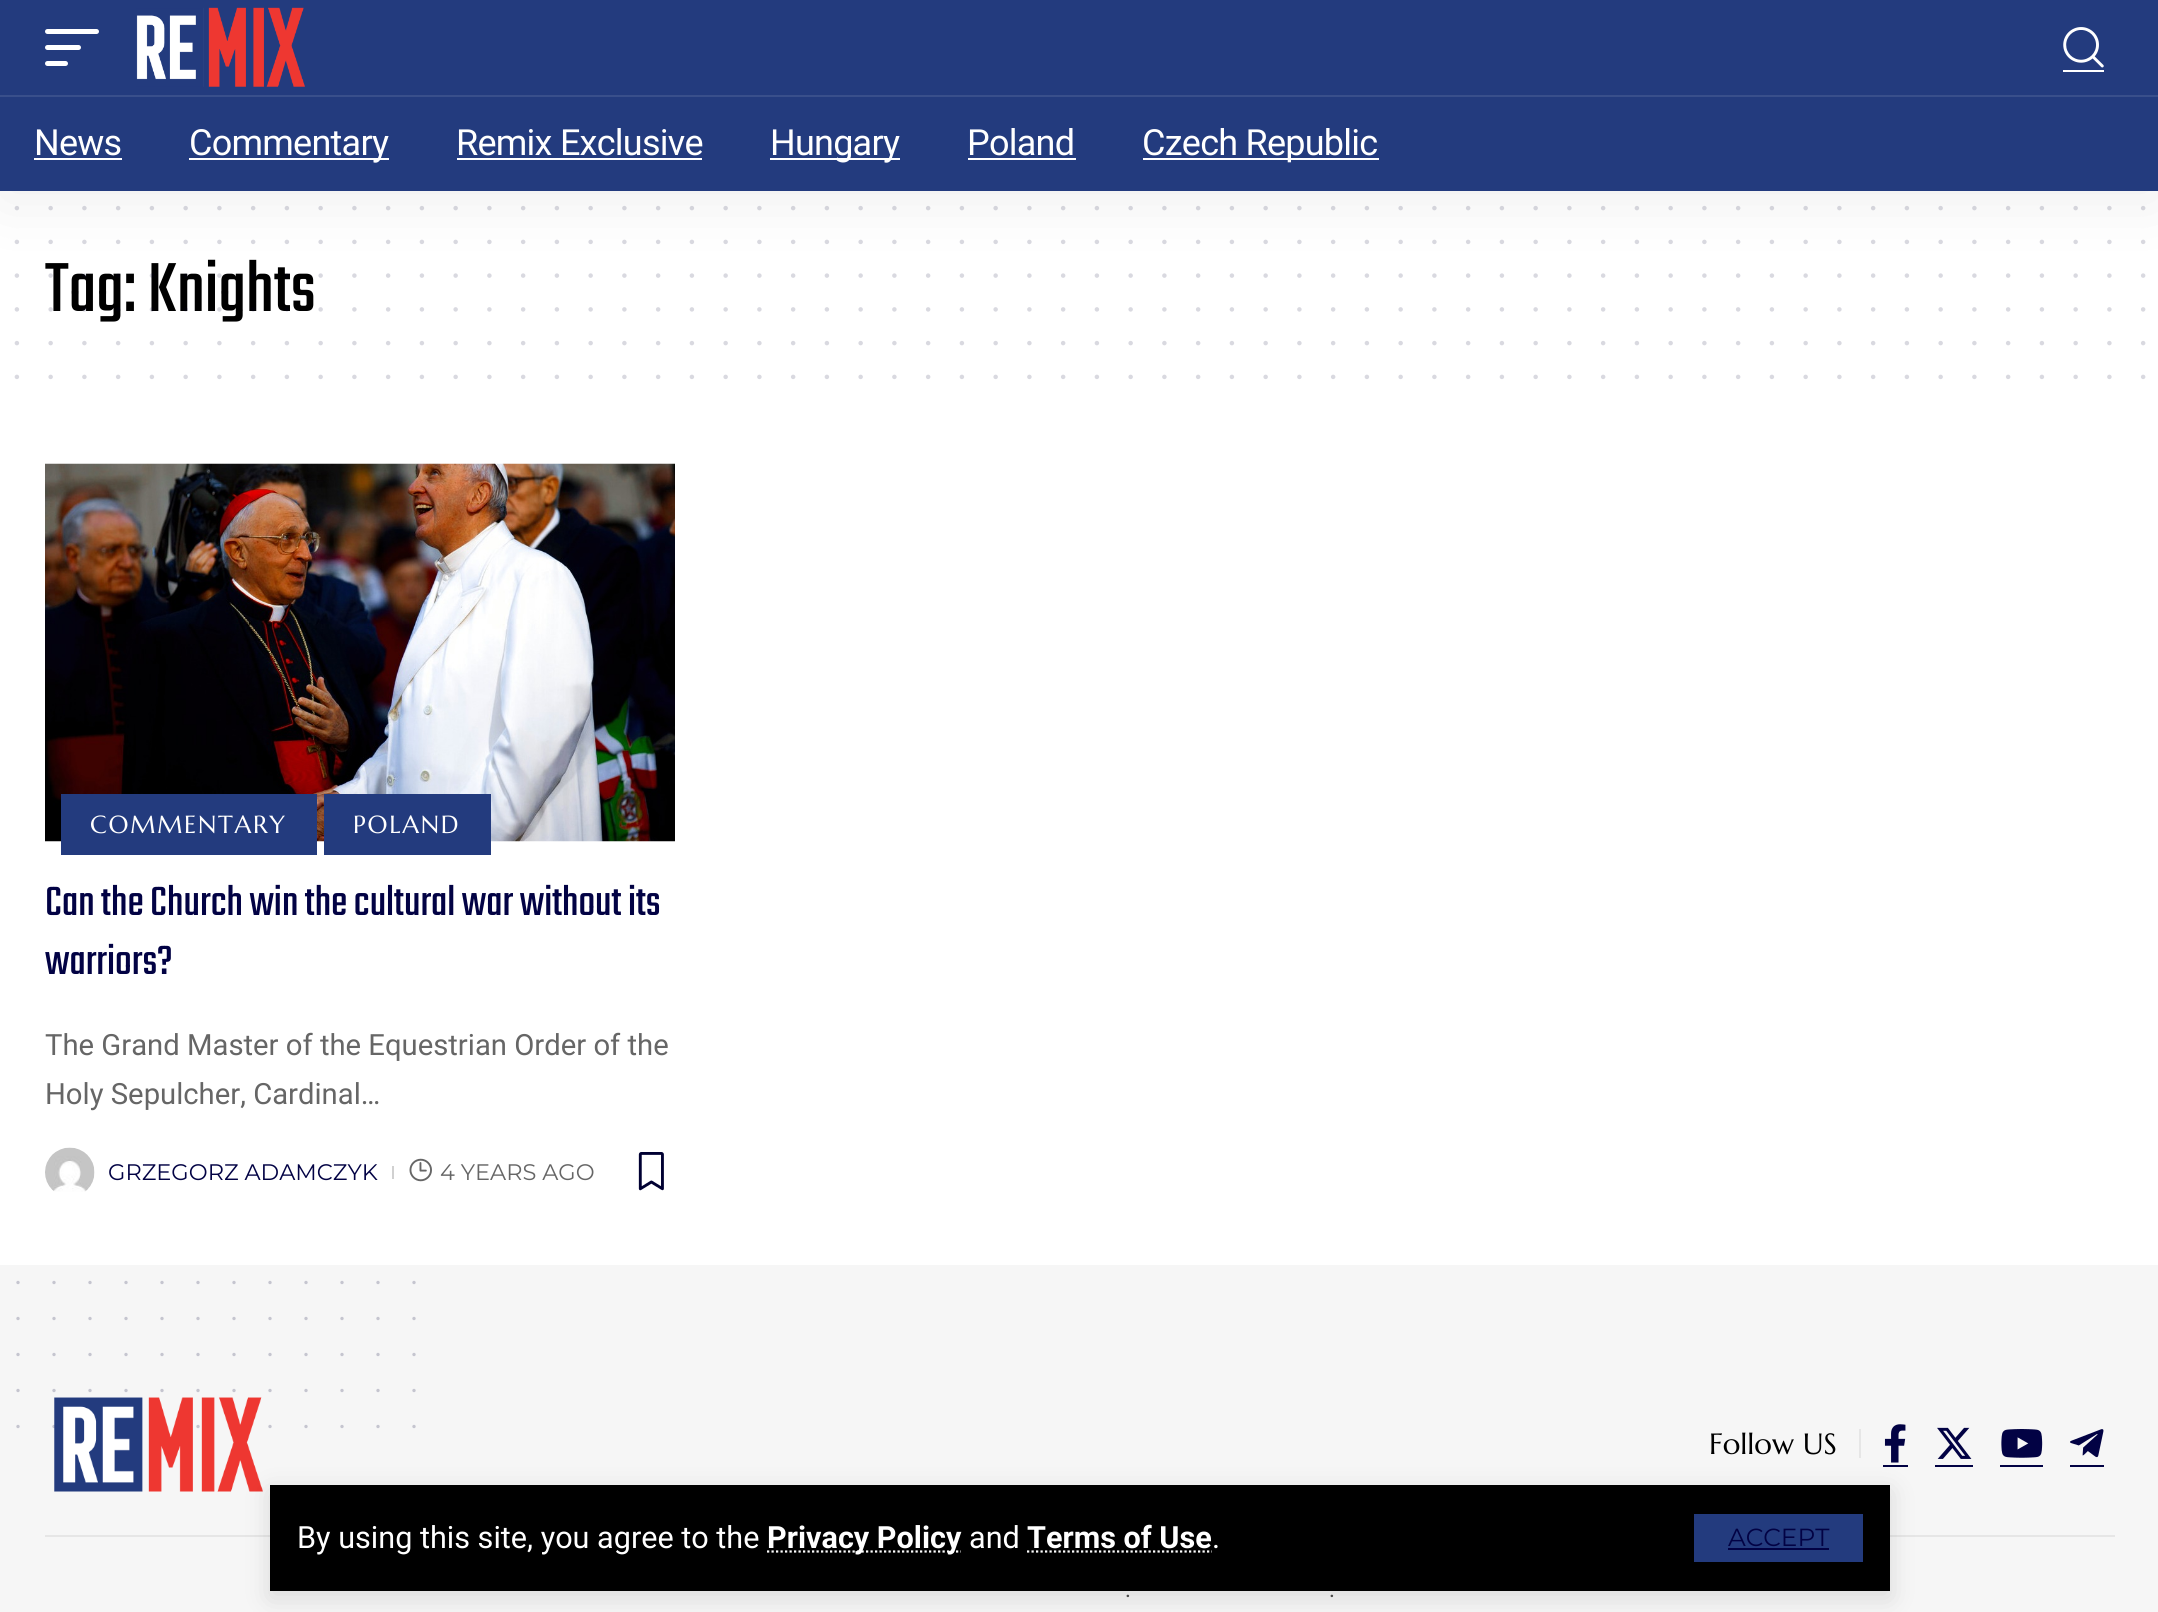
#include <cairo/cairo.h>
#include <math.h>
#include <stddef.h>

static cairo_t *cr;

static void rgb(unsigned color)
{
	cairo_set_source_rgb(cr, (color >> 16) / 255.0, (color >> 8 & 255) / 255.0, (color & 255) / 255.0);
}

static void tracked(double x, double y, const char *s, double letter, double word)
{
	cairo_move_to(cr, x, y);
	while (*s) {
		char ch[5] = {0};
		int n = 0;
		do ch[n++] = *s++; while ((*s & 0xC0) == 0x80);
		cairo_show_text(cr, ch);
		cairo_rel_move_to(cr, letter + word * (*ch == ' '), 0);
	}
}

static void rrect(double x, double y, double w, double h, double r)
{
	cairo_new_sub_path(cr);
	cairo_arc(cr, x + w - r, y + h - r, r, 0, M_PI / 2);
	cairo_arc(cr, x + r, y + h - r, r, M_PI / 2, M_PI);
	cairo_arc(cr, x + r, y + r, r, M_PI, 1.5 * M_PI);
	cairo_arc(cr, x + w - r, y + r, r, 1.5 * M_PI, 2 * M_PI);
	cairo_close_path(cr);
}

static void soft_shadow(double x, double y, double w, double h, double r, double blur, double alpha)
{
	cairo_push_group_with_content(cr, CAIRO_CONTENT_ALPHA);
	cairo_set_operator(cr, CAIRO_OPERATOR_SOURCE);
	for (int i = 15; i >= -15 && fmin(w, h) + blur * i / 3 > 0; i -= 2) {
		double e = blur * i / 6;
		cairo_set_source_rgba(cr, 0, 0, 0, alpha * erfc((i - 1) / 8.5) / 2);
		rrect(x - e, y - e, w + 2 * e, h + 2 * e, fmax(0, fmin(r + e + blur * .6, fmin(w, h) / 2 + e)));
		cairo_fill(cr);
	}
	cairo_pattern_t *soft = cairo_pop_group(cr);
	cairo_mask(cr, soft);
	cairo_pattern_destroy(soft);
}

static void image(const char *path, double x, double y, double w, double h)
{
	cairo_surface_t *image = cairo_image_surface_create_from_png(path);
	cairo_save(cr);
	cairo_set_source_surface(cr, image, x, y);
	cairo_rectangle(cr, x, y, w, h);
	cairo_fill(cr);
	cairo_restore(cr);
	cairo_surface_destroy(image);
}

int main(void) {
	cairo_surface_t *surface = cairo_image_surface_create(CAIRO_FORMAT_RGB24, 2158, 1612);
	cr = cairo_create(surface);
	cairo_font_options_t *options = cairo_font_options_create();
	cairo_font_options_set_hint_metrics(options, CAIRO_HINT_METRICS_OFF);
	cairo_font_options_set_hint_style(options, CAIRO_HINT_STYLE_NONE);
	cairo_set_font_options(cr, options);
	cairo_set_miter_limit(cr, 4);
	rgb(0xffffff);
	cairo_paint(cr);
	rgb(0xf6f6f6);
	cairo_rectangle(cr, 0, 1265, 2158, 347);
	cairo_fill(cr);
	cairo_new_path(cr);
	cairo_move_to(cr, 18, 1426.5);
	cairo_line_to(cr, 414.4, 1426.5);
	rgb(0xc5c5cf);
	cairo_set_line_width(cr, 3.4);
	cairo_set_line_cap(cr, CAIRO_LINE_CAP_ROUND);
	cairo_set_dash(cr, (double[]){0, 36}, 2, 0);
	cairo_stroke(cr);
	image("img/7.png", 54, 1397, 209, 95);
	rgb(0xe6e6e6);
	cairo_rectangle(cr, 1859, 1429, 2, 29);
	cairo_fill(cr);
	image("img/8.png", 1884, 1424, 22, 39);
	rgb(0x020244);
	cairo_rectangle(cr, 1883, 1465, 25, 2);
	cairo_fill(cr);
	rgb(0xe6e6e6);
	cairo_rectangle(cr, 45, 1535, 2070, 2);
	cairo_fill(cr);
	rgb(0x000000);
	soft_shadow(270, 1492, 1620, 106, 0, 13.5, 0.12);
	rgb(0x000000);
	cairo_rectangle(cr, 270, 1485, 1620, 106);
	cairo_fill(cr);
	cairo_new_path(cr);
	cairo_move_to(cr, 767, 1551.5);
	cairo_line_to(cr, 961, 1551.5);
	rgb(0xffffff);
	cairo_set_line_width(cr, 2.2);
	cairo_set_line_cap(cr, CAIRO_LINE_CAP_BUTT);
	cairo_set_dash(cr, (double[]){2.25, 2.25}, 2, 0);
	cairo_stroke(cr);
	cairo_new_path(cr);
	cairo_move_to(cr, 1027, 1551.5);
	cairo_line_to(cr, 1212, 1551.5);
	cairo_stroke(cr);
	rgb(0x233b7e);
	cairo_rectangle(cr, 1694, 1514, 169, 48);
	cairo_fill(cr);
	rgb(0x020244);
	cairo_rectangle(cr, 1728, 1548, 101, 2);
	cairo_fill(cr);
	cairo_new_path(cr);
	cairo_move_to(cr, 16.9, 208.1);
	cairo_line_to(cr, 2143.6, 208.1);
	rgb(0xd9d9e0);
	cairo_set_line_width(cr, 4.5);
	cairo_set_line_cap(cr, CAIRO_LINE_CAP_ROUND);
	cairo_set_dash(cr, (double[]){0, 33.75}, 2, 0);
	cairo_stroke(cr);
	cairo_new_path(cr);
	cairo_move_to(cr, 16.9, 241.9);
	cairo_line_to(cr, 2143.6, 241.9);
	cairo_stroke(cr);
	cairo_new_path(cr);
	cairo_move_to(cr, 16.9, 343.1);
	cairo_line_to(cr, 2143.6, 343.1);
	cairo_stroke(cr);
	cairo_new_path(cr);
	cairo_move_to(cr, 16.9, 376.9);
	cairo_line_to(cr, 2143.6, 376.9);
	cairo_stroke(cr);
	image("img/3.png", 45, 463, 630, 379);
	rgb(0x233b7e);
	cairo_rectangle(cr, 61, 794, 256, 61);
	cairo_fill(cr);
	cairo_rectangle(cr, 324, 794, 167, 61);
	cairo_fill(cr);
	image("img/4.png", 45, 1147, 50, 45);
	rgb(0xd1d1d1);
	cairo_rectangle(cr, 392, 1166, 2, 13);
	cairo_fill(cr);
	image("img/5.png", 409, 1158, 23, 24);
	image("img/6.png", 638, 1152, 26, 39);
	cairo_new_path(cr);
	cairo_move_to(cr, 18, 1282.5);
	cairo_line_to(cr, 414.4, 1282.5);
	rgb(0xc5c5cf);
	cairo_set_line_width(cr, 3.4);
	cairo_set_dash(cr, (double[]){0, 36}, 2, 0);
	cairo_stroke(cr);
	cairo_new_path(cr);
	cairo_move_to(cr, 18, 1318.5);
	cairo_line_to(cr, 414.4, 1318.5);
	cairo_stroke(cr);
	cairo_new_path(cr);
	cairo_move_to(cr, 18, 1354.5);
	cairo_line_to(cr, 414.4, 1354.5);
	cairo_stroke(cr);
	cairo_new_path(cr);
	cairo_move_to(cr, 18, 1390.5);
	cairo_line_to(cr, 414.4, 1390.5);
	cairo_stroke(cr);
	image("img/9.png", 1937, 1427, 35, 32);
	rgb(0x020244);
	cairo_rectangle(cr, 1935, 1465, 38, 2);
	cairo_fill(cr);
	image("img/10.png", 2001, 1429, 42, 29);
	cairo_rectangle(cr, 2000, 1465, 43, 2);
	cairo_fill(cr);
	image("img/11.png", 2070, 1429, 34, 29);
	cairo_rectangle(cr, 2070, 1465, 34, 2);
	cairo_fill(cr);
	cairo_select_font_face(cr, "Roboto", CAIRO_FONT_SLANT_NORMAL, CAIRO_FONT_WEIGHT_NORMAL);
	cairo_set_font_size(cr, 30.6);
	rgb(0xffffff);
	cairo_move_to(cr, 297, 1548);
	cairo_show_text(cr, "By using this site, you agree to the");
	cairo_select_font_face(cr, "Roboto", CAIRO_FONT_SLANT_NORMAL, CAIRO_FONT_WEIGHT_BOLD);
	cairo_move_to(cr, 767, 1548);
	cairo_show_text(cr, "Privacy Policy");
	cairo_select_font_face(cr, "Roboto", CAIRO_FONT_SLANT_NORMAL, CAIRO_FONT_WEIGHT_NORMAL);
	cairo_move_to(cr, 969, 1548);
	cairo_show_text(cr, "and");
	cairo_select_font_face(cr, "Roboto", CAIRO_FONT_SLANT_NORMAL, CAIRO_FONT_WEIGHT_BOLD);
	cairo_move_to(cr, 1027, 1548);
	cairo_show_text(cr, "Terms of Use");
	cairo_select_font_face(cr, "Roboto", CAIRO_FONT_SLANT_NORMAL, CAIRO_FONT_WEIGHT_NORMAL);
	cairo_move_to(cr, 1212, 1548);
	cairo_show_text(cr, ".");
	cairo_select_font_face(cr, "Montserrat", CAIRO_FONT_SLANT_NORMAL, CAIRO_FONT_WEIGHT_NORMAL);
	cairo_set_font_size(cr, 24.75);
	rgb(0x020244);
	cairo_move_to(cr, 1728, 1546);
	cairo_show_text(cr, "ACCEPT");
	cairo_select_font_face(cr, "Teko Light", CAIRO_FONT_SLANT_NORMAL, CAIRO_FONT_WEIGHT_NORMAL);
	cairo_set_font_size(cr, 76.5);
	rgb(0x000000);
	cairo_move_to(cr, 45, 311);
	cairo_show_text(cr, "Tag: Knights");
	cairo_new_path(cr);
	cairo_move_to(cr, 16.9, 275.6);
	cairo_line_to(cr, 2143.6, 275.6);
	cairo_set_source_rgba(cr, 0, 0, 0.196, 0.15);
	cairo_set_line_width(cr, 4.5);
	cairo_set_dash(cr, (double[]){0, 33.75}, 2, 0);
	cairo_stroke(cr);
	rgb(0x000000);
	soft_shadow(0, 9, 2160, 191, 0, 34, 0.07);
	rgb(0x233b7e);
	cairo_rectangle(cr, 0, 0, 2158, 191);
	cairo_fill(cr);
	rgb(0xffffff);
	cairo_rectangle(cr, 1143, 158, 236, 2);
	cairo_fill(cr);
	cairo_select_font_face(cr, "Roboto", CAIRO_FONT_SLANT_NORMAL, CAIRO_FONT_WEIGHT_NORMAL);
	cairo_set_font_size(cr, 36);
	tracked(1142, 155, "Czech Republic", -0.75, 0);
	tracked(967, 155, "Poland", -0.75, 0);
	cairo_rectangle(cr, 968, 158, 108, 2);
	cairo_fill(cr);
	cairo_rectangle(cr, 770, 158, 130, 2);
	cairo_fill(cr);
	tracked(770, 155, "Hungary", -0.75, 0);
	tracked(456, 155, "Remix Exclusive", -0.75, 0);
	cairo_rectangle(cr, 457, 158, 245, 2);
	cairo_fill(cr);
	cairo_rectangle(cr, 189, 158, 200, 2);
	cairo_fill(cr);
	tracked(189, 155, "Commentary", -0.75, 0);
	tracked(34, 155, "News", -0.75, 0);
	cairo_rectangle(cr, 34, 158, 88, 2);
	cairo_fill(cr);
	rgb(0x394f8b);
	cairo_rectangle(cr, 0, 95, 2158, 2);
	cairo_fill(cr);
	image("img/2.png", 2063, 27, 41, 41);
	rgb(0xffffff);
	cairo_rectangle(cr, 2063, 70, 41, 2);
	cairo_fill(cr);
	rrect(45, 61, 23, 5, 2.5);
	cairo_fill(cr);
	rrect(45, 45, 36, 5, 2.5);
	cairo_fill(cr);
	rrect(45, 29, 54, 5, 2.5);
	cairo_fill(cr);
	image("img/1.png", 136, 7, 169, 80);
	cairo_new_path(cr);
	cairo_move_to(cr, 16.9, 309.4);
	cairo_line_to(cr, 2143.6, 309.4);
	cairo_set_source_rgba(cr, 0, 0, 0.196, 0.15);
	cairo_stroke(cr);
	cairo_select_font_face(cr, "Marcellus", CAIRO_FONT_SLANT_NORMAL, CAIRO_FONT_WEIGHT_NORMAL);
	cairo_set_font_size(cr, 24.75);
	rgb(0xffffff);
	tracked(90, 833, "COMMENTARY", 1.75, 0);
	tracked(353, 833, "POLAND", 1.75, 0);
	cairo_select_font_face(cr, "Teko Light", CAIRO_FONT_SLANT_NORMAL, CAIRO_FONT_WEIGHT_NORMAL);
	cairo_set_font_size(cr, 45);
	rgb(0x020244);
	cairo_move_to(cr, 45, 915);
	cairo_show_text(cr, "Can the Church win the cultural war without its");
	cairo_move_to(cr, 45, 974);
	cairo_show_text(cr, "warriors?");
	cairo_select_font_face(cr, "Roboto", CAIRO_FONT_SLANT_NORMAL, CAIRO_FONT_WEIGHT_NORMAL);
	cairo_set_font_size(cr, 29.25);
	rgb(0x666666);
	cairo_move_to(cr, 45, 1055);
	cairo_show_text(cr, "The Grand Master of the Equestrian Order of the");
	cairo_move_to(cr, 45, 1104);
	cairo_show_text(cr, "Holy Sepulcher, Cardinal…");
	cairo_select_font_face(cr, "Montserrat", CAIRO_FONT_SLANT_NORMAL, CAIRO_FONT_WEIGHT_NORMAL);
	cairo_set_font_size(cr, 22.5);
	rgb(0x020244);
	cairo_move_to(cr, 108, 1180);
	cairo_show_text(cr, "GRZEGORZ ADAMCZYK");
	rgb(0x666666);
	cairo_move_to(cr, 440, 1180);
	cairo_show_text(cr, "4 YEARS AGO");
	cairo_select_font_face(cr, "Marcellus", CAIRO_FONT_SLANT_NORMAL, CAIRO_FONT_WEIGHT_NORMAL);
	cairo_set_font_size(cr, 29.25);
	rgb(0x000000);
	cairo_move_to(cr, 1709, 1454);
	cairo_show_text(cr, "Follow US");
	cairo_select_font_face(cr, "Roboto", CAIRO_FONT_SLANT_NORMAL, CAIRO_FONT_WEIGHT_NORMAL);
	cairo_set_font_size(cr, 22.5);
	rgb(0x4a4a4a);
	cairo_move_to(cr, 1125, 1597);
	cairo_show_text(cr, ".");
	cairo_move_to(cr, 1329, 1597);
	cairo_show_text(cr, ".");
	cairo_surface_write_to_png(surface, "page.png");
	cairo_font_options_destroy(options);
	cairo_destroy(cr);
	cairo_surface_destroy(surface);
	return 0;
}
